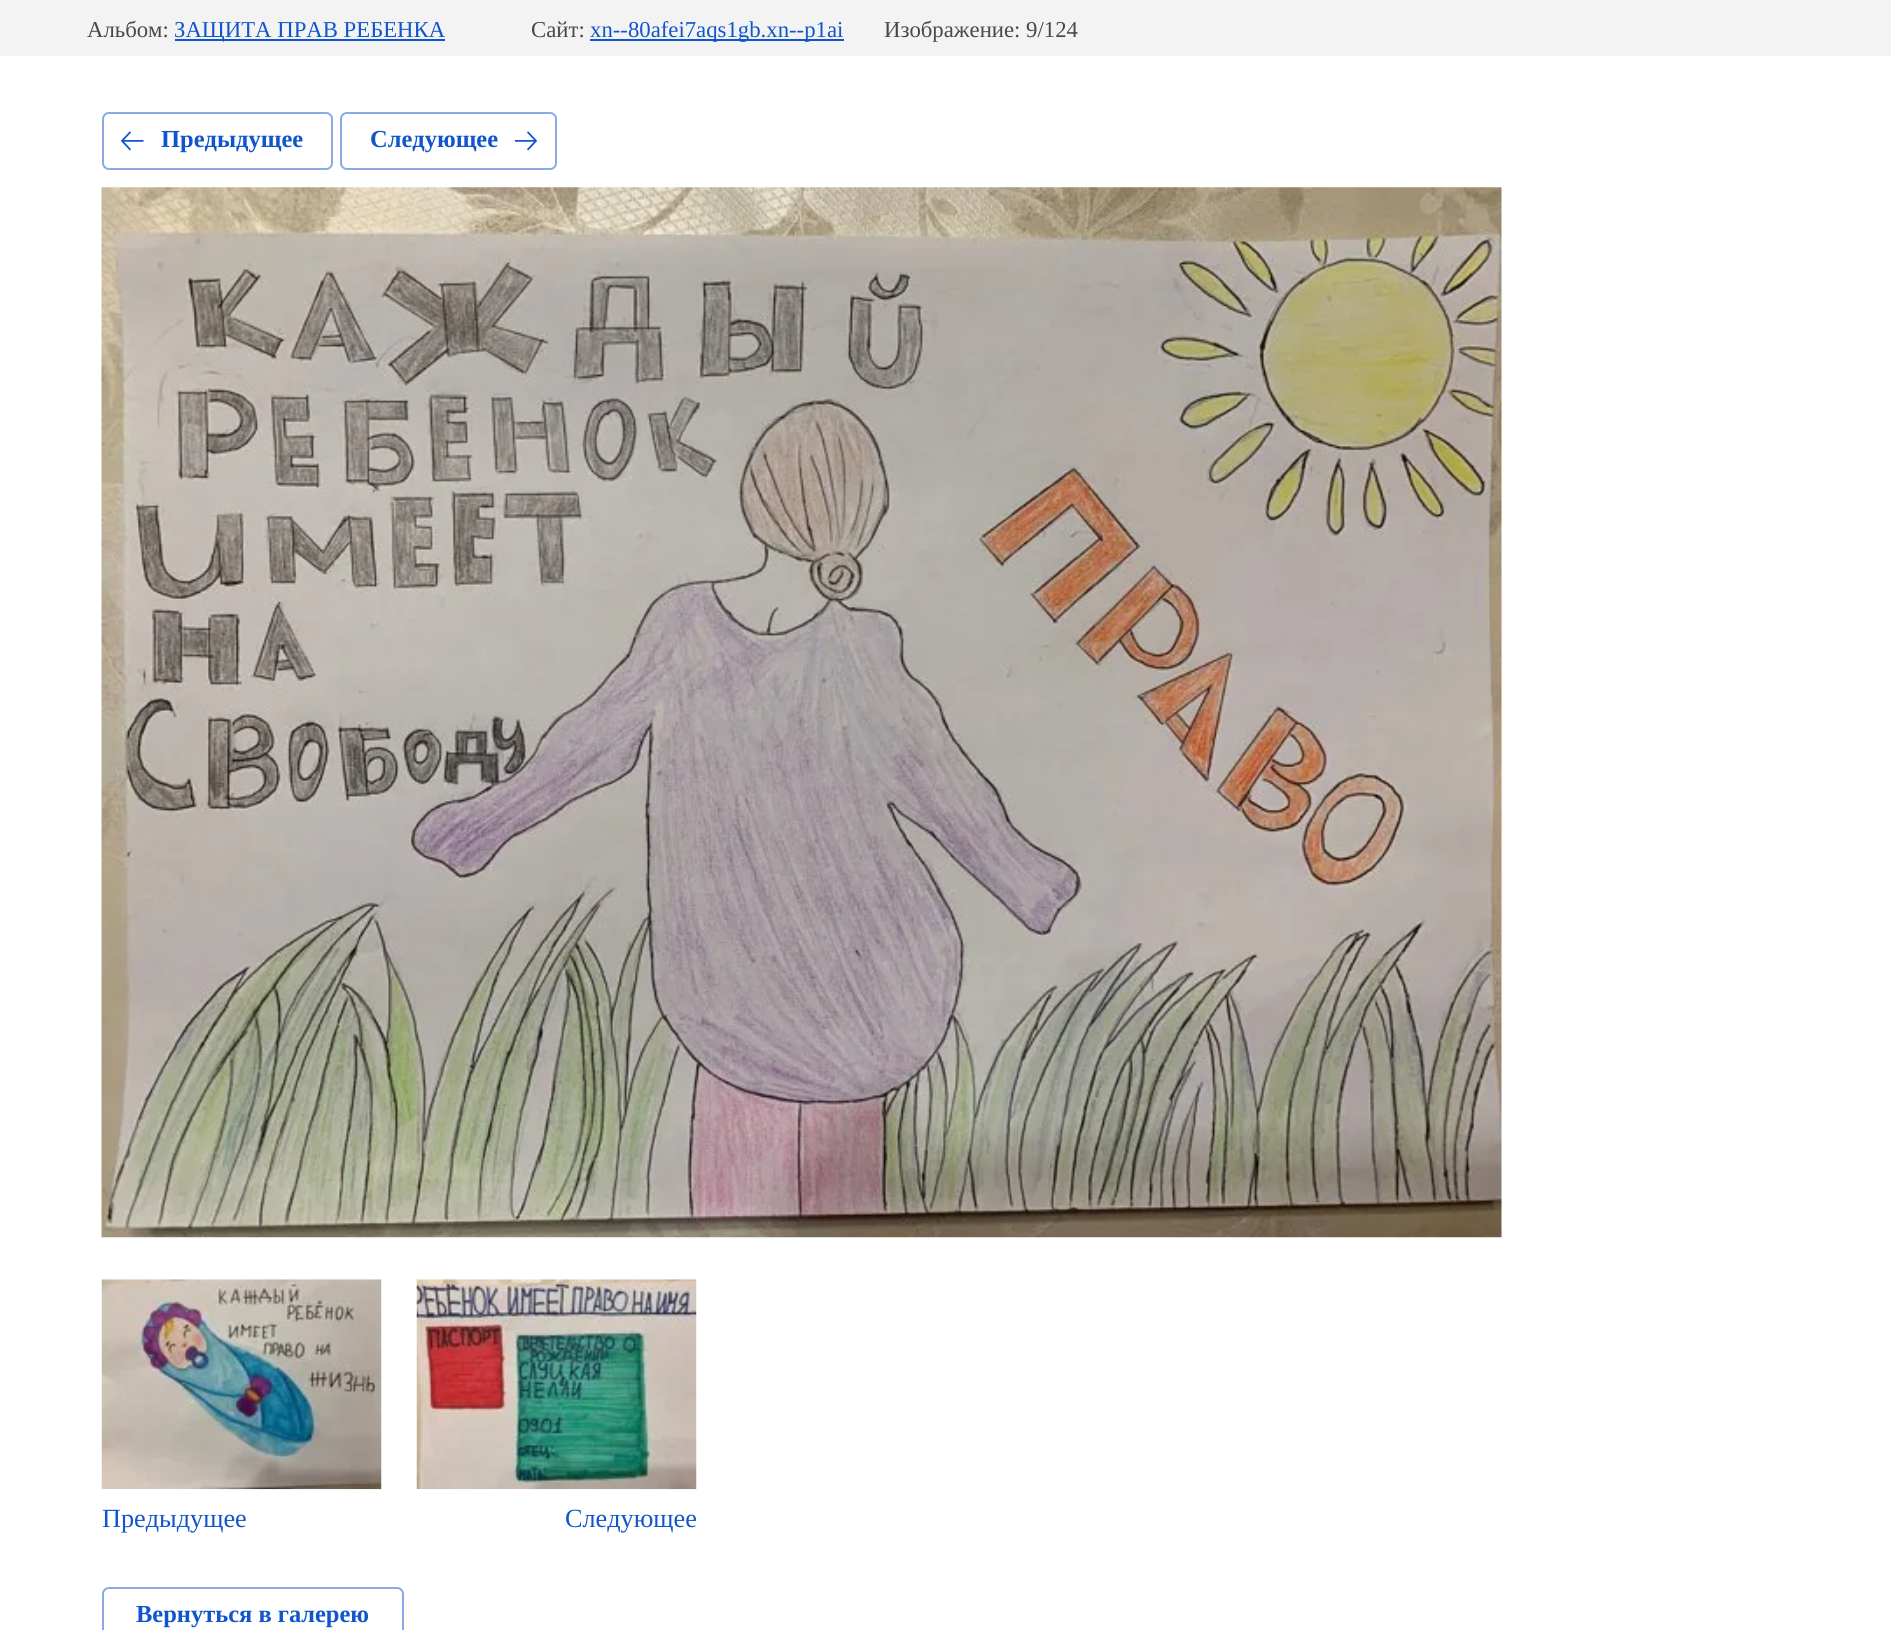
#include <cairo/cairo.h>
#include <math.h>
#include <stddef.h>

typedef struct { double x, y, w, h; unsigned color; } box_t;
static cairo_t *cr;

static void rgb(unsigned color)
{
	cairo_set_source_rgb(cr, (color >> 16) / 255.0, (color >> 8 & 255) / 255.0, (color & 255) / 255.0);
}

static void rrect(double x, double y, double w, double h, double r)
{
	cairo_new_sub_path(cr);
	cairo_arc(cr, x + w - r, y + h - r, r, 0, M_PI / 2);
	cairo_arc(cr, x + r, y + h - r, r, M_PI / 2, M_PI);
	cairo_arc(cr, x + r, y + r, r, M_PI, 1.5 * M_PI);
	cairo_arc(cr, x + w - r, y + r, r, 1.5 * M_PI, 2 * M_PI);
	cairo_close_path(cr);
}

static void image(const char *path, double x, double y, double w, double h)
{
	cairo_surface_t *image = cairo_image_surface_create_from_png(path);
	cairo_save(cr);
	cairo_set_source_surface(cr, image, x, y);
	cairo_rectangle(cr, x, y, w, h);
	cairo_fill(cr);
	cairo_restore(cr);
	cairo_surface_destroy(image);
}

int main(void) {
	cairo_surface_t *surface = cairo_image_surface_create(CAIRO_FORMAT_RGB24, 1891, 1630);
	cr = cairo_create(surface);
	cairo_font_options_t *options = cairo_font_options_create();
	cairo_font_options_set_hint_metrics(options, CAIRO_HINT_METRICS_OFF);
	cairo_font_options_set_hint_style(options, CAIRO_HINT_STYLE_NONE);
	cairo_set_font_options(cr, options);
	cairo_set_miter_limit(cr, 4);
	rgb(0xffffff);
	cairo_paint(cr);
	{
		static const box_t items[] = {
			{0, 0, 1891, 56, 0xf3f3f3},
			{175, 39, 270, 2, 0x1155cc},
			{590, 39, 254, 2, 0x1155cc},
		};
		for (size_t i = 0; i < sizeof items / sizeof *items; i++) {
			rgb(items[i].color);
			cairo_rectangle(cr, items[i].x, items[i].y, items[i].w, items[i].h);
			cairo_fill(cr);
		}
	}
	rrect(103, 113, 229, 56, 6);
	rgb(0x88aae6);
	cairo_stroke(cr);
	image("img/1.png", 121, 131, 23, 20);
	rrect(341, 113, 215, 56, 6);
	cairo_stroke(cr);
	image("img/2.png", 515, 131, 22, 20);
	image("img/3.png", 101, 187, 1401, 1051);
	image("img/4.png", 101, 1279, 281, 211);
	image("img/5.png", 416, 1279, 281, 211);
	rrect(103, 1588, 300, 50, 6);
	cairo_stroke(cr);
	cairo_select_font_face(cr, "Liberation Serif", CAIRO_FONT_SLANT_NORMAL, CAIRO_FONT_WEIGHT_NORMAL);
	cairo_set_font_size(cr, 22.75);
	rgb(0x484848);
	cairo_move_to(cr, 87, 37);
	cairo_show_text(cr, "Альбом:");
	rgb(0x1155cc);
	cairo_move_to(cr, 174, 37);
	cairo_show_text(cr, "ЗАЩИТА ПРАВ РЕБЕНКА");
	rgb(0x484848);
	cairo_move_to(cr, 531, 37);
	cairo_show_text(cr, "Сайт:");
	rgb(0x1155cc);
	cairo_move_to(cr, 590, 37);
	cairo_show_text(cr, "xn--80afei7aqs1gb.xn--p1ai");
	rgb(0x484848);
	cairo_move_to(cr, 884, 37);
	cairo_show_text(cr, "Изображение: 9/124");
	cairo_select_font_face(cr, "Liberation Serif", CAIRO_FONT_SLANT_NORMAL, CAIRO_FONT_WEIGHT_BOLD);
	cairo_set_font_size(cr, 24.5);
	rgb(0x1155cc);
	cairo_move_to(cr, 161, 147);
	cairo_show_text(cr, "Предыдущее");
	cairo_move_to(cr, 370, 147);
	cairo_show_text(cr, "Следующее");
	cairo_select_font_face(cr, "Liberation Serif", CAIRO_FONT_SLANT_NORMAL, CAIRO_FONT_WEIGHT_NORMAL);
	cairo_set_font_size(cr, 26.25);
	cairo_move_to(cr, 102, 1527);
	cairo_show_text(cr, "Предыдущее");
	cairo_move_to(cr, 565, 1527);
	cairo_show_text(cr, "Следующее");
	cairo_select_font_face(cr, "Liberation Serif", CAIRO_FONT_SLANT_NORMAL, CAIRO_FONT_WEIGHT_BOLD);
	cairo_set_font_size(cr, 24.5);
	cairo_move_to(cr, 136, 1622);
	cairo_show_text(cr, "Вернуться в галерею");
	cairo_surface_write_to_png(surface, "page.png");
	cairo_font_options_destroy(options);
	cairo_destroy(cr);
	cairo_surface_destroy(surface);
	return 0;
}
